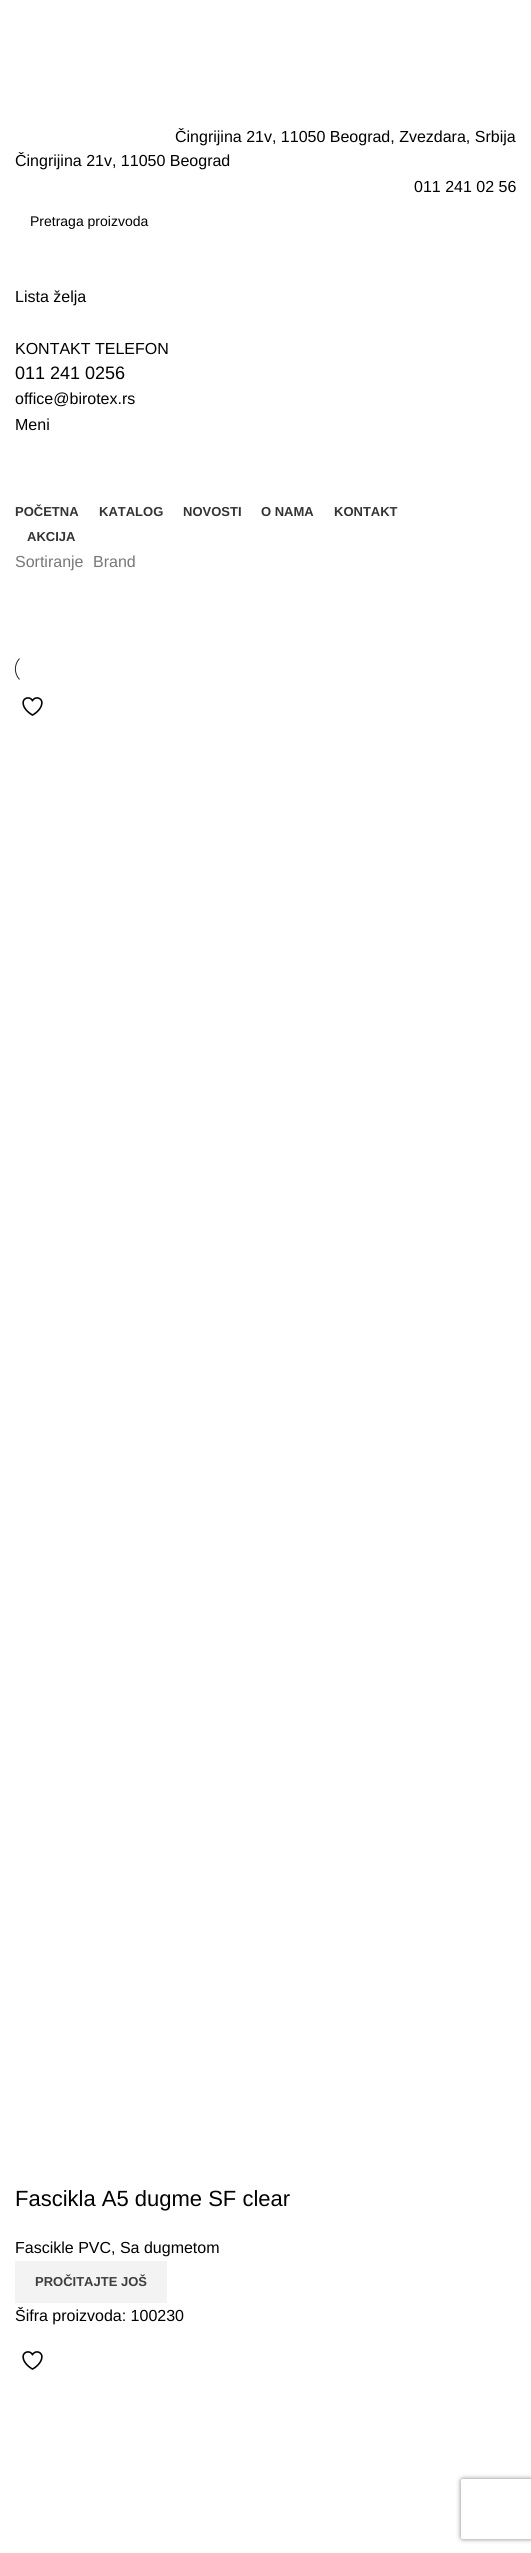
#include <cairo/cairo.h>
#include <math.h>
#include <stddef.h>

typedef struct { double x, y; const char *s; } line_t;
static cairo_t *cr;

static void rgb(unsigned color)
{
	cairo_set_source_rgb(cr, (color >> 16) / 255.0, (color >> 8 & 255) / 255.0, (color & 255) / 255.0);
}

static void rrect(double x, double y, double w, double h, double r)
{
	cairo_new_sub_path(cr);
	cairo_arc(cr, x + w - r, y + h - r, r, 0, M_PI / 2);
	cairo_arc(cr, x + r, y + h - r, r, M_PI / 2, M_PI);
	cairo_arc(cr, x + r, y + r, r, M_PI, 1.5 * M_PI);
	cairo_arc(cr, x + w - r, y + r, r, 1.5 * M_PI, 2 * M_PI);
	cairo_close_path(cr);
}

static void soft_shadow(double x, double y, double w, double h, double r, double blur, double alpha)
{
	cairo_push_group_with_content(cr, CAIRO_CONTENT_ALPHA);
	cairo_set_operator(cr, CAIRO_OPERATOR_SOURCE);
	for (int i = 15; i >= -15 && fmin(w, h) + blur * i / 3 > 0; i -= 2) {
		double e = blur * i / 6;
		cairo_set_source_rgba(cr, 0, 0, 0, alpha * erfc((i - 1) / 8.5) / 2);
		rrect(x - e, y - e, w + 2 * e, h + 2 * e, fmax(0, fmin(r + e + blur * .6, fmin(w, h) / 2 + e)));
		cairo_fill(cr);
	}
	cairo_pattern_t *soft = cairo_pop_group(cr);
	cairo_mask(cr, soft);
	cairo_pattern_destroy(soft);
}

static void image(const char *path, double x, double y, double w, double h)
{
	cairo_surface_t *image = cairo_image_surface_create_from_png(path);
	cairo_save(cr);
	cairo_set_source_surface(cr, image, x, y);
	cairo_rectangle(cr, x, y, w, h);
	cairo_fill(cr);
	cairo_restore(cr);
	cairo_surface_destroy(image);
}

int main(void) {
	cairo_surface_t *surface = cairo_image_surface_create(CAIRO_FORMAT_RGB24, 531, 2553);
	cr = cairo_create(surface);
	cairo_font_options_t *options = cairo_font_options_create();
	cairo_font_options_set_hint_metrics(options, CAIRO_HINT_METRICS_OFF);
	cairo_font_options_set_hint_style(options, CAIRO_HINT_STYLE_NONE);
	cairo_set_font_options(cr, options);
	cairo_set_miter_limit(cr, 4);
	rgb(0xffffff);
	cairo_paint(cr);
	cairo_new_path(cr);
	cairo_move_to(cr, 19.5, 679.5);
	cairo_curve_to(cr, 14, 673.5, 14, 664.5, 19.5, 658.5);
	rgb(0x242424);
	cairo_set_line_width(cr, 1);
	cairo_stroke(cr);
	image("img/1.png", 22, 697, 21, 19);
	rgb(0xf3f3f3);
	cairo_rectangle(cr, 15, 2261, 152, 42);
	cairo_fill(cr);
	image("img/1.png", 22, 2351, 21, 19);
	cairo_save(cr);
	cairo_set_fill_rule(cr, CAIRO_FILL_RULE_EVEN_ODD);
	cairo_new_path(cr);
	cairo_move_to(cr, 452, 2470);
	cairo_line_to(cr, 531, 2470);
	cairo_line_to(cr, 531, 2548);
	cairo_line_to(cr, 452, 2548);
	cairo_close_path(cr);
	cairo_move_to(cr, 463, 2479);
	cairo_line_to(cr, 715, 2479);
	cairo_curve_to(cr, 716, 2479, 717, 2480, 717, 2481);
	cairo_line_to(cr, 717, 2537);
	cairo_curve_to(cr, 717, 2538, 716, 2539, 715, 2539);
	cairo_line_to(cr, 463, 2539);
	cairo_curve_to(cr, 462, 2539, 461, 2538, 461, 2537);
	cairo_line_to(cr, 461, 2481);
	cairo_curve_to(cr, 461, 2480, 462, 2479, 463, 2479);
	cairo_close_path(cr);
	cairo_clip(cr);
	rgb(0x808080);
	soft_shadow(461, 2479, 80, 60, 2, 2.5, 1);
	cairo_restore(cr);
	cairo_select_font_face(cr, "Liberation Sans", CAIRO_FONT_SLANT_NORMAL, CAIRO_FONT_WEIGHT_NORMAL);
	cairo_set_font_size(cr, 16);
	rgb(0x000000);
	{
		static const line_t items[] = {
			{175, 142, "Čingrijina 21v, 11050 Beograd, Zvezdara, Srbija"},
			{15, 166, "Čingrijina 21v, 11050 Beograd"},
			{414, 192, "011 241 02 56"},
		};
		for (size_t i = 0; i < sizeof items / sizeof *items; i++) {
			cairo_move_to(cr, items[i].x, items[i].y);
			cairo_show_text(cr, items[i].s);
		}
	}
	cairo_set_font_size(cr, 14);
	cairo_move_to(cr, 30, 226);
	cairo_show_text(cr, "Pretraga proizvoda");
	cairo_set_font_size(cr, 16);
	cairo_move_to(cr, 15, 302);
	cairo_show_text(cr, "Lista želja");
	cairo_move_to(cr, 15, 354);
	cairo_show_text(cr, "KONTAKT TELEFON");
	cairo_set_font_size(cr, 18);
	cairo_move_to(cr, 15, 379);
	cairo_show_text(cr, "011 241 0256");
	cairo_set_font_size(cr, 16);
	cairo_move_to(cr, 15, 404);
	cairo_show_text(cr, "office@birotex.rs");
	cairo_move_to(cr, 15, 430);
	cairo_show_text(cr, "Meni");
	cairo_select_font_face(cr, "Liberation Sans", CAIRO_FONT_SLANT_NORMAL, CAIRO_FONT_WEIGHT_BOLD);
	cairo_set_font_size(cr, 13);
	rgb(0x333333);
	{
		static const line_t items[] = {
			{15, 516, "POČETNA"},
			{99, 516, "KATALOG"},
			{183, 516, "NOVOSTI"},
			{261, 516, "O NAMA"},
			{334, 516, "KONTAKT"},
			{27, 541, "AKCIJA"},
		};
		for (size_t i = 0; i < sizeof items / sizeof *items; i++) {
			cairo_move_to(cr, items[i].x, items[i].y);
			cairo_show_text(cr, items[i].s);
		}
	}
	cairo_select_font_face(cr, "Liberation Sans", CAIRO_FONT_SLANT_NORMAL, CAIRO_FONT_WEIGHT_NORMAL);
	cairo_set_font_size(cr, 16);
	rgb(0x777777);
	cairo_move_to(cr, 15, 567);
	cairo_show_text(cr, "Sortiranje");
	cairo_move_to(cr, 93, 567);
	cairo_show_text(cr, "Brand");
	cairo_set_font_size(cr, 22);
	rgb(0x000000);
	cairo_move_to(cr, 15, 2206);
	cairo_show_text(cr, "Fascikla A5 dugme SF clear");
	cairo_set_font_size(cr, 16);
	cairo_move_to(cr, 15, 2253);
	cairo_show_text(cr, "Fascikle PVC, Sa dugmetom");
	cairo_select_font_face(cr, "Liberation Sans", CAIRO_FONT_SLANT_NORMAL, CAIRO_FONT_WEIGHT_BOLD);
	cairo_set_font_size(cr, 13);
	rgb(0x3e3e3e);
	cairo_move_to(cr, 35, 2286);
	cairo_show_text(cr, "PROČITAJTE JOŠ");
	cairo_select_font_face(cr, "Liberation Sans", CAIRO_FONT_SLANT_NORMAL, CAIRO_FONT_WEIGHT_NORMAL);
	cairo_set_font_size(cr, 16);
	rgb(0x000000);
	cairo_move_to(cr, 15, 2321);
	cairo_show_text(cr, "Šifra proizvoda: 100230");
	cairo_surface_write_to_png(surface, "page.png");
	cairo_font_options_destroy(options);
	cairo_destroy(cr);
	cairo_surface_destroy(surface);
	return 0;
}
